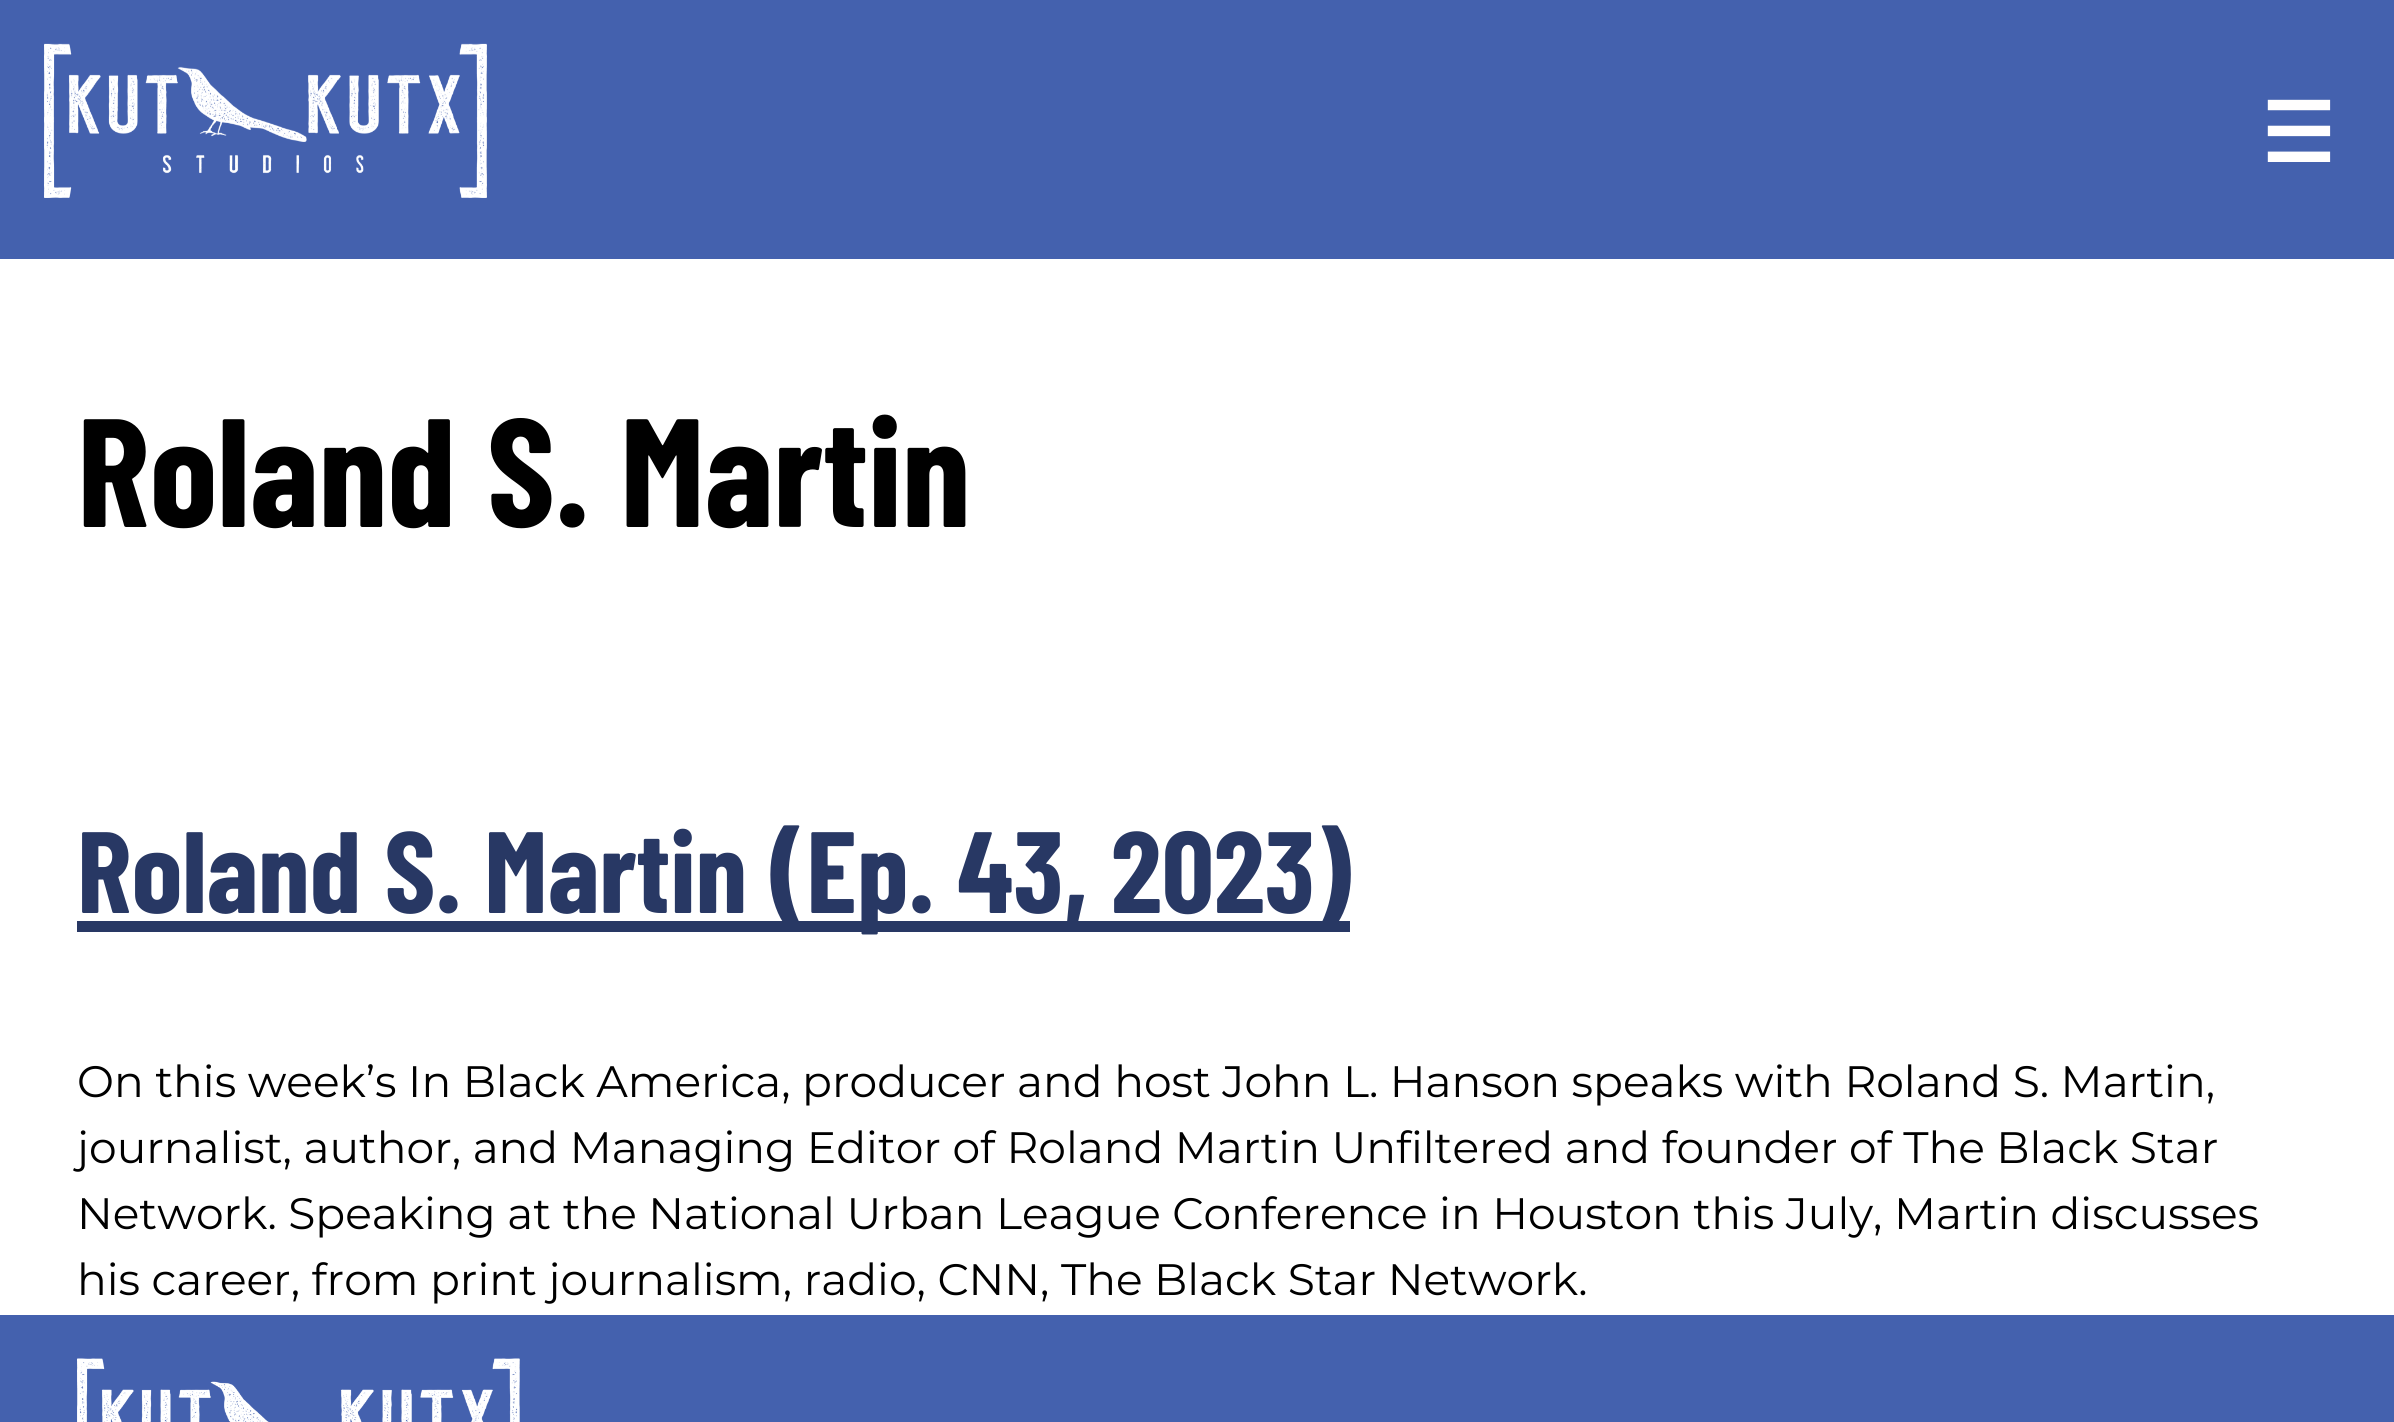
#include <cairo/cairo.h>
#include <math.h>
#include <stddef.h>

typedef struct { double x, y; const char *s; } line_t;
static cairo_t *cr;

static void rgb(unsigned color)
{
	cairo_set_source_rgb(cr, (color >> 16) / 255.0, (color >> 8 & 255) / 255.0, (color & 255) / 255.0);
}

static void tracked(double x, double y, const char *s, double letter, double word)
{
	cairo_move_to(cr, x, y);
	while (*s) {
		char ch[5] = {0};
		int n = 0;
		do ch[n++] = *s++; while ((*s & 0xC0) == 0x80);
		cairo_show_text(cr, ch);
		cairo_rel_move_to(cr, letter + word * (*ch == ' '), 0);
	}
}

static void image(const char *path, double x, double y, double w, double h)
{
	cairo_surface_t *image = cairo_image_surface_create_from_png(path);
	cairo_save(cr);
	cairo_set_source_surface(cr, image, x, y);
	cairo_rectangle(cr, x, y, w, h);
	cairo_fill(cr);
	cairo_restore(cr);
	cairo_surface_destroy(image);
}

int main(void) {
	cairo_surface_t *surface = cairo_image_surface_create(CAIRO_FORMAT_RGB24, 2394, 1422);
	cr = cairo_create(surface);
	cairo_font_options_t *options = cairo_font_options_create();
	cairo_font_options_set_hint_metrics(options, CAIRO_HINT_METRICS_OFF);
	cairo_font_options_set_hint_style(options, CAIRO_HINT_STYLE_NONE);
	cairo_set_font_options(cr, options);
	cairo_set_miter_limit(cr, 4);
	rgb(0xffffff);
	cairo_paint(cr);
	rgb(0x4461ae);
	cairo_rectangle(cr, 0, 0, 2394, 259);
	cairo_fill(cr);
	image("img/1.png", 44, 43, 443, 155);
	rgb(0x283864);
	cairo_rectangle(cr, 77, 921, 1273, 11);
	cairo_fill(cr);
	rgb(0x4461ae);
	cairo_rectangle(cr, 0, 1315, 2394, 107);
	cairo_fill(cr);
	image("img/2.png", 77, 1358, 443, 64);
	cairo_select_font_face(cr, "DejaVu Sans", CAIRO_FONT_SLANT_NORMAL, CAIRO_FONT_WEIGHT_BOLD);
	cairo_set_font_size(cr, 82);
	rgb(0xfffefe);
	tracked(2261, 162, "☰", 8, 0);
	cairo_select_font_face(cr, "Barlow Condensed", CAIRO_FONT_SLANT_NORMAL, CAIRO_FONT_WEIGHT_BOLD);
	cairo_set_font_size(cr, 154);
	rgb(0x000000);
	cairo_move_to(cr, 77, 527);
	cairo_show_text(cr, "Roland S. Martin");
	cairo_set_font_size(cr, 115.5);
	rgb(0x283864);
	cairo_move_to(cr, 77, 913);
	cairo_show_text(cr, "Roland S. Martin (Ep. 43, 2023)");
	cairo_select_font_face(cr, "Montserrat", CAIRO_FONT_SLANT_NORMAL, CAIRO_FONT_WEIGHT_NORMAL);
	cairo_set_font_size(cr, 44);
	rgb(0x000000);
	{
		static const line_t items[] = {
			{77, 1097, "On this week’s In Black America, producer and host John L. Hanson speaks with Roland S. Martin,"},
			{77, 1163, "journalist, author, and Managing Editor of Roland Martin Unfiltered and founder of The Black Star"},
			{77, 1229, "Network. Speaking at the National Urban League Conference in Houston this July, Martin discusses"},
			{77, 1295, "his career, from print journalism, radio, CNN, The Black Star Network."},
		};
		for (size_t i = 0; i < sizeof items / sizeof *items; i++) {
			cairo_move_to(cr, items[i].x, items[i].y);
			cairo_show_text(cr, items[i].s);
		}
	}
	cairo_surface_write_to_png(surface, "page.png");
	cairo_font_options_destroy(options);
	cairo_destroy(cr);
	cairo_surface_destroy(surface);
	return 0;
}
